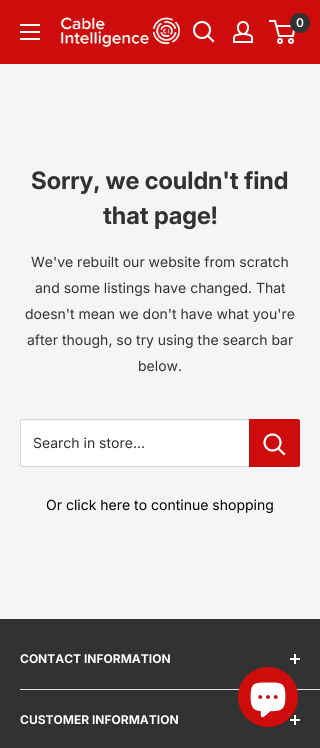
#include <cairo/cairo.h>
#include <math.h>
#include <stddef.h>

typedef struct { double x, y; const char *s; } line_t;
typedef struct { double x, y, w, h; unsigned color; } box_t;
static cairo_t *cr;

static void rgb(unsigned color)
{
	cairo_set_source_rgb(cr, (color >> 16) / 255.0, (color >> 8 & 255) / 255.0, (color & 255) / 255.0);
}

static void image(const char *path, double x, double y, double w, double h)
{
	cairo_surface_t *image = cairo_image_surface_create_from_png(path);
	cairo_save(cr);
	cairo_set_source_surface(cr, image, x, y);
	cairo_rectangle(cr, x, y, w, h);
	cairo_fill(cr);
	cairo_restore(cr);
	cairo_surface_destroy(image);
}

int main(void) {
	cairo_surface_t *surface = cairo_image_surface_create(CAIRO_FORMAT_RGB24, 320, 748);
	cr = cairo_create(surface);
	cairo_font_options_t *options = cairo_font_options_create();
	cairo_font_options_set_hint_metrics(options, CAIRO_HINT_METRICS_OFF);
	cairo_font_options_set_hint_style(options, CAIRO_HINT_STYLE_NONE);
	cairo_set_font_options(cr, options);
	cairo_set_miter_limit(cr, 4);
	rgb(0xf3f5f6);
	cairo_paint(cr);
	rgb(0xce0c0c);
	cairo_rectangle(cr, 0, 0, 320, 64);
	cairo_fill(cr);
	image("img/1.png", 60, 17, 120, 30);
	cairo_new_path(cr);
	cairo_move_to(cr, 213, 41);
	cairo_line_to(cr, 207.5, 35.5);
	rgb(0xffffff);
	cairo_set_line_width(cr, 2.1);
	cairo_set_line_cap(cr, CAIRO_LINE_CAP_SQUARE);
	cairo_stroke(cr);
	cairo_arc(cr, 202, 30, 8, 0, 2 * M_PI);
	cairo_set_line_cap(cr, CAIRO_LINE_CAP_BUTT);
	cairo_stroke(cr);
	image("img/2.png", 233, 21, 20, 22);
	cairo_arc(cr, 280, 41, 2, 0, 2 * M_PI);
	cairo_set_line_width(cr, 2);
	cairo_stroke(cr);
	cairo_arc(cr, 291, 41, 2, 0, 2 * M_PI);
	cairo_stroke(cr);
	cairo_new_path(cr);
	cairo_move_to(cr, 276.5, 26);
	cairo_line_to(cr, 294.5, 26);
	cairo_line_to(cr, 293, 36);
	cairo_line_to(cr, 279, 36);
	cairo_line_to(cr, 275, 21);
	cairo_line_to(cr, 269, 21);
	cairo_stroke(cr);
	rgb(0x323232);
	cairo_arc(cr, 300, 23, 10, 0, 2 * M_PI);
	cairo_fill(cr);
	image("img/3.png", 20, 24, 20, 16);
	rgb(0xffffff);
	cairo_new_path(cr);
	cairo_move_to(cr, 22, 419);
	cairo_line_to(cr, 249, 419);
	cairo_line_to(cr, 249, 467);
	cairo_line_to(cr, 22, 467);
	cairo_curve_to(cr, 21, 467, 20, 466, 20, 465);
	cairo_line_to(cr, 20, 421);
	cairo_curve_to(cr, 20, 420, 21, 419, 22, 419);
	cairo_close_path(cr);
	cairo_fill(cr);
	rgb(0xf8f8f8);
	cairo_new_path(cr);
	cairo_move_to(cr, 22, 421);
	cairo_line_to(cr, 249, 421);
	cairo_line_to(cr, 249, 420);
	cairo_line_to(cr, 22, 420);
	cairo_curve_to(cr, 21, 420, 21, 421, 21, 422);
	cairo_curve_to(cr, 21, 421, 21, 421, 22, 421);
	cairo_close_path(cr);
	cairo_fill(cr);
	{
		static const box_t items[] = {
			{21, 419, 228, 1, 0xd4d6d8},
			{21, 466, 228, 1, 0xd4d6d8},
			{20, 420, 1, 46, 0xd4d6d8},
		};
		for (size_t i = 0; i < sizeof items / sizeof *items; i++) {
			rgb(items[i].color);
			cairo_rectangle(cr, items[i].x, items[i].y, items[i].w, items[i].h);
			cairo_fill(cr);
		}
	}
	rgb(0xce0c0c);
	cairo_new_path(cr);
	cairo_move_to(cr, 249, 419);
	cairo_line_to(cr, 298, 419);
	cairo_curve_to(cr, 299, 419, 300, 420, 300, 421);
	cairo_line_to(cr, 300, 465);
	cairo_curve_to(cr, 300, 466, 299, 467, 298, 467);
	cairo_line_to(cr, 249, 467);
	cairo_close_path(cr);
	cairo_fill(cr);
	cairo_new_path(cr);
	cairo_move_to(cr, 284, 454);
	cairo_line_to(cr, 278.5, 448.5);
	rgb(0xffffff);
	cairo_set_line_width(cr, 2.2);
	cairo_set_line_cap(cr, CAIRO_LINE_CAP_SQUARE);
	cairo_stroke(cr);
	cairo_arc(cr, 272.5, 442.5, 8, 0, 2 * M_PI);
	cairo_set_line_cap(cr, CAIRO_LINE_CAP_BUTT);
	cairo_stroke(cr);
	{
		static const box_t items[] = {
			{0, 619, 320, 129, 0x323232},
			{20, 689, 300, 1, 0xe1e3e4},
			{294, 654, 2, 10, 0xffffff},
			{290, 658, 10, 2, 0xffffff},
			{294, 715, 2, 10, 0xffffff},
			{290, 719, 10, 2, 0xffffff},
		};
		for (size_t i = 0; i < sizeof items / sizeof *items; i++) {
			rgb(items[i].color);
			cairo_rectangle(cr, items[i].x, items[i].y, items[i].w, items[i].h);
			cairo_fill(cr);
		}
	}
	rgb(0xce0c0c);
	cairo_arc(cr, 268, 697, 30, 0, 2 * M_PI);
	cairo_fill(cr);
	image("img/4.png", 250, 682, 36, 36);
	cairo_select_font_face(cr, "Inter SemiBold", CAIRO_FONT_SLANT_NORMAL, CAIRO_FONT_WEIGHT_NORMAL);
	cairo_set_font_size(cr, 12);
	rgb(0xffffff);
	cairo_move_to(cr, 296, 27);
	cairo_show_text(cr, "0");
	cairo_select_font_face(cr, "Inter", CAIRO_FONT_SLANT_NORMAL, CAIRO_FONT_WEIGHT_BOLD);
	cairo_set_font_size(cr, 24);
	rgb(0x323232);
	cairo_move_to(cr, 31, 189);
	cairo_show_text(cr, "Sorry, we couldn't find");
	cairo_move_to(cr, 103, 224);
	cairo_show_text(cr, "that page!");
	cairo_select_font_face(cr, "Inter", CAIRO_FONT_SLANT_NORMAL, CAIRO_FONT_WEIGHT_NORMAL);
	cairo_set_font_size(cr, 14);
	{
		static const line_t items[] = {
			{31, 267, "We've rebuilt our website from scratch"},
			{35, 293, "and some listings have changed. That"},
			{25, 319, "doesn't mean we don't have what you're"},
			{27, 345, "after though, so try using the search bar"},
			{138, 371, "below."},
			{33, 448, "Search in store..."},
		};
		for (size_t i = 0; i < sizeof items / sizeof *items; i++) {
			cairo_move_to(cr, items[i].x, items[i].y);
			cairo_show_text(cr, items[i].s);
		}
	}
	rgb(0x000000);
	cairo_move_to(cr, 46, 510);
	cairo_show_text(cr, "Or click here to continue shopping");
	cairo_select_font_face(cr, "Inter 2", CAIRO_FONT_SLANT_NORMAL, CAIRO_FONT_WEIGHT_BOLD);
	cairo_set_font_size(cr, 12);
	rgb(0xffffff);
	cairo_move_to(cr, 20, 663);
	cairo_show_text(cr, "CONTACT INFORMATION");
	cairo_move_to(cr, 20, 724);
	cairo_show_text(cr, "CUSTOMER INFORMATION");
	cairo_surface_write_to_png(surface, "page.png");
	cairo_font_options_destroy(options);
	cairo_destroy(cr);
	cairo_surface_destroy(surface);
	return 0;
}
